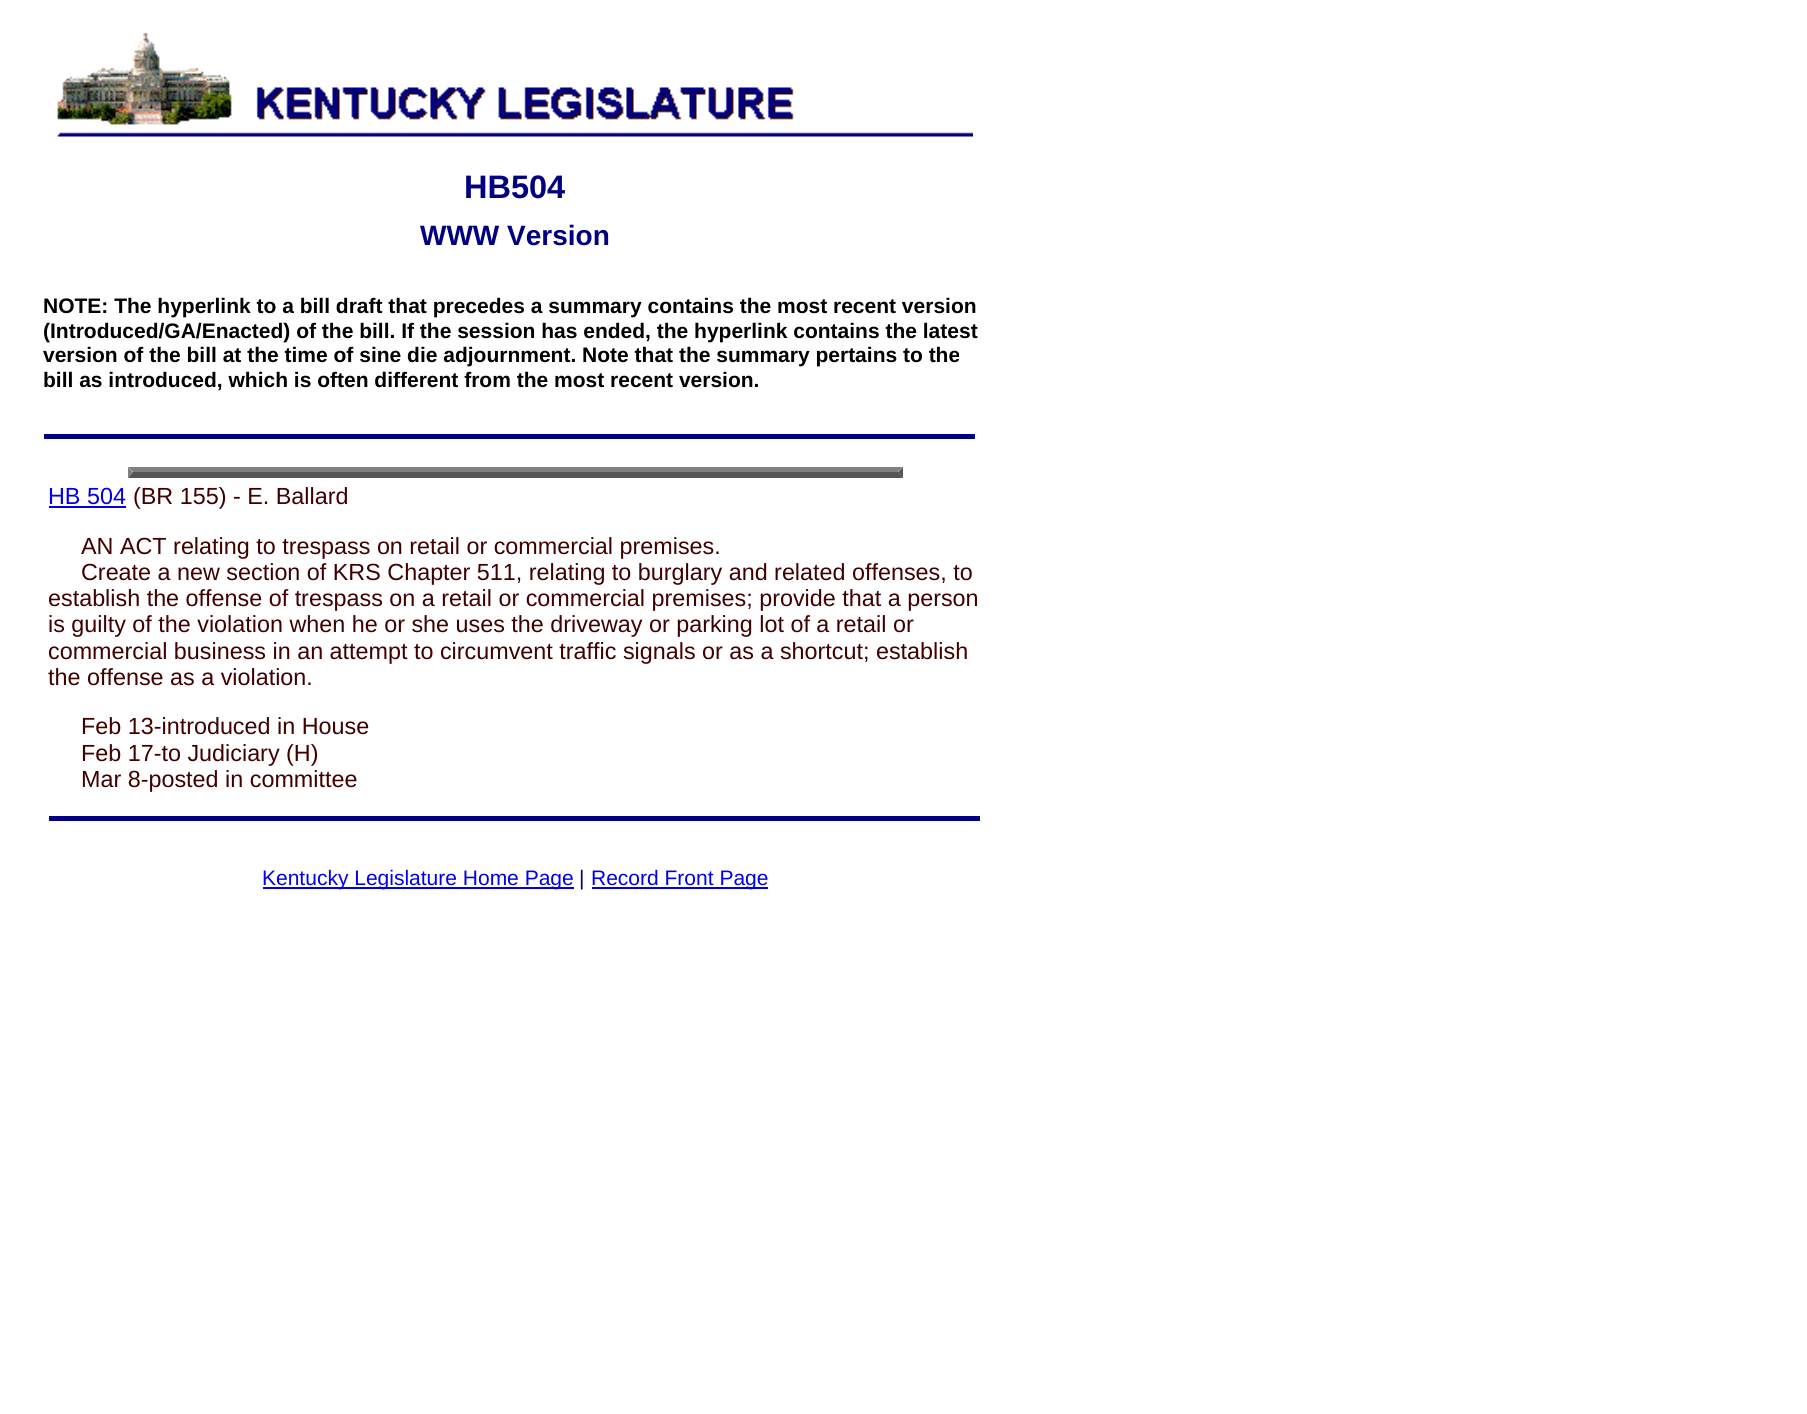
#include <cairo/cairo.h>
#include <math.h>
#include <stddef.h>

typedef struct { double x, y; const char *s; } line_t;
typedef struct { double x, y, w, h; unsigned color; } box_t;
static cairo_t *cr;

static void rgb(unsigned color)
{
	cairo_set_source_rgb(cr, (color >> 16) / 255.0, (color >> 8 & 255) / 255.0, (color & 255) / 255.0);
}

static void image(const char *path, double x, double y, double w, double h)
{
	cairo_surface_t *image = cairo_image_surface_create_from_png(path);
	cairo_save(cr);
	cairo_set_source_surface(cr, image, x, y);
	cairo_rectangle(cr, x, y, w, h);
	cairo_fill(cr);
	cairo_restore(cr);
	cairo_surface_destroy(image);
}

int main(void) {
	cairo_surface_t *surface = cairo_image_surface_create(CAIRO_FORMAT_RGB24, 1807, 1414);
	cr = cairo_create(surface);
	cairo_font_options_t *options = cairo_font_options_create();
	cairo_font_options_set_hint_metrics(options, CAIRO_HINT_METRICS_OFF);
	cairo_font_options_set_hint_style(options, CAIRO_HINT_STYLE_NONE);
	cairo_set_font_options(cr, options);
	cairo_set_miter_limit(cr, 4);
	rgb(0xffffff);
	cairo_paint(cr);
	image("img/1.png", 57, 32, 916, 105);
	rgb(0x000080);
	cairo_rectangle(cr, 44, 434, 931, 5);
	cairo_fill(cr);
	rgb(0x808080);
	cairo_new_path(cr);
	cairo_move_to(cr, 128, 467);
	cairo_line_to(cr, 903, 467);
	cairo_line_to(cr, 898, 472);
	cairo_line_to(cr, 133, 472);
	cairo_close_path(cr);
	cairo_fill(cr);
	rgb(0x555555);
	cairo_new_path(cr);
	cairo_move_to(cr, 903, 467);
	cairo_line_to(cr, 903, 478);
	cairo_line_to(cr, 898, 472.5);
	cairo_close_path(cr);
	cairo_fill(cr);
	cairo_new_path(cr);
	cairo_move_to(cr, 903, 478);
	cairo_line_to(cr, 128, 478);
	cairo_line_to(cr, 133, 472);
	cairo_line_to(cr, 898, 472);
	cairo_close_path(cr);
	cairo_fill(cr);
	rgb(0x808080);
	cairo_new_path(cr);
	cairo_move_to(cr, 128, 478);
	cairo_line_to(cr, 128, 467);
	cairo_line_to(cr, 133, 472.5);
	cairo_close_path(cr);
	cairo_fill(cr);
	{
		static const box_t items[] = {
			{49, 506, 77, 2, 0x0000ee},
			{49, 816, 931, 5, 0x000080},
			{263, 887, 311, 2, 0x0000ee},
			{592, 887, 176, 2, 0x0000ee},
		};
		for (size_t i = 0; i < sizeof items / sizeof *items; i++) {
			rgb(items[i].color);
			cairo_rectangle(cr, items[i].x, items[i].y, items[i].w, items[i].h);
			cairo_fill(cr);
		}
	}
	cairo_select_font_face(cr, "Liberation Sans", CAIRO_FONT_SLANT_NORMAL, CAIRO_FONT_WEIGHT_BOLD);
	cairo_set_font_size(cr, 32.5);
	rgb(0x000080);
	cairo_move_to(cr, 464, 198);
	cairo_show_text(cr, "HB504");
	cairo_set_font_size(cr, 28);
	cairo_move_to(cr, 420, 245);
	cairo_show_text(cr, "WWW Version");
	cairo_set_font_size(cr, 21);
	rgb(0x000000);
	{
		static const line_t items[] = {
			{43, 313, "NOTE: The hyperlink to a bill draft that precedes a summary contains the most recent version"},
			{43, 338, "(Introduced/GA/Enacted) of the bill. If the session has ended, the hyperlink contains the latest"},
			{43, 362, "version of the bill at the time of sine die adjournment. Note that the summary pertains to the"},
			{43, 387, "bill as introduced, which is often different from the most recent version."},
		};
		for (size_t i = 0; i < sizeof items / sizeof *items; i++) {
			cairo_move_to(cr, items[i].x, items[i].y);
			cairo_show_text(cr, items[i].s);
		}
	}
	cairo_select_font_face(cr, "Liberation Sans", CAIRO_FONT_SLANT_NORMAL, CAIRO_FONT_WEIGHT_NORMAL);
	cairo_set_font_size(cr, 23.35);
	rgb(0x0000ee);
	cairo_move_to(cr, 48, 504);
	cairo_show_text(cr, "HB 504");
	rgb(0x400000);
	{
		static const line_t items[] = {
			{133, 504, "(BR 155) - E. Ballard"},
			{81, 554, "AN ACT relating to trespass on retail or commercial premises."},
			{81, 580, "Create a new section of KRS Chapter 511, relating to burglary and related offenses, to"},
			{48, 606, "establish the offense of trespass on a retail or commercial premises; provide that a person"},
			{48, 632, "is guilty of the violation when he or she uses the driveway or parking lot of a retail or"},
			{48, 659, "commercial business in an attempt to circumvent traffic signals or as a shortcut; establish"},
			{48, 685, "the offense as a violation."},
			{81, 734, "Feb 13-introduced in House"},
			{81, 761, "Feb 17-to Judiciary (H)"},
			{81, 787, "Mar 8-posted in committee"},
		};
		for (size_t i = 0; i < sizeof items / sizeof *items; i++) {
			cairo_move_to(cr, items[i].x, items[i].y);
			cairo_show_text(cr, items[i].s);
		}
	}
	cairo_set_font_size(cr, 21);
	rgb(0x0000ee);
	cairo_move_to(cr, 262, 885);
	cairo_show_text(cr, "Kentucky Legislature Home Page");
	rgb(0x000080);
	cairo_move_to(cr, 579, 885);
	cairo_show_text(cr, "|");
	rgb(0x0000ee);
	cairo_move_to(cr, 591, 885);
	cairo_show_text(cr, "Record Front Page");
	cairo_surface_write_to_png(surface, "page.png");
	cairo_font_options_destroy(options);
	cairo_destroy(cr);
	cairo_surface_destroy(surface);
	return 0;
}
